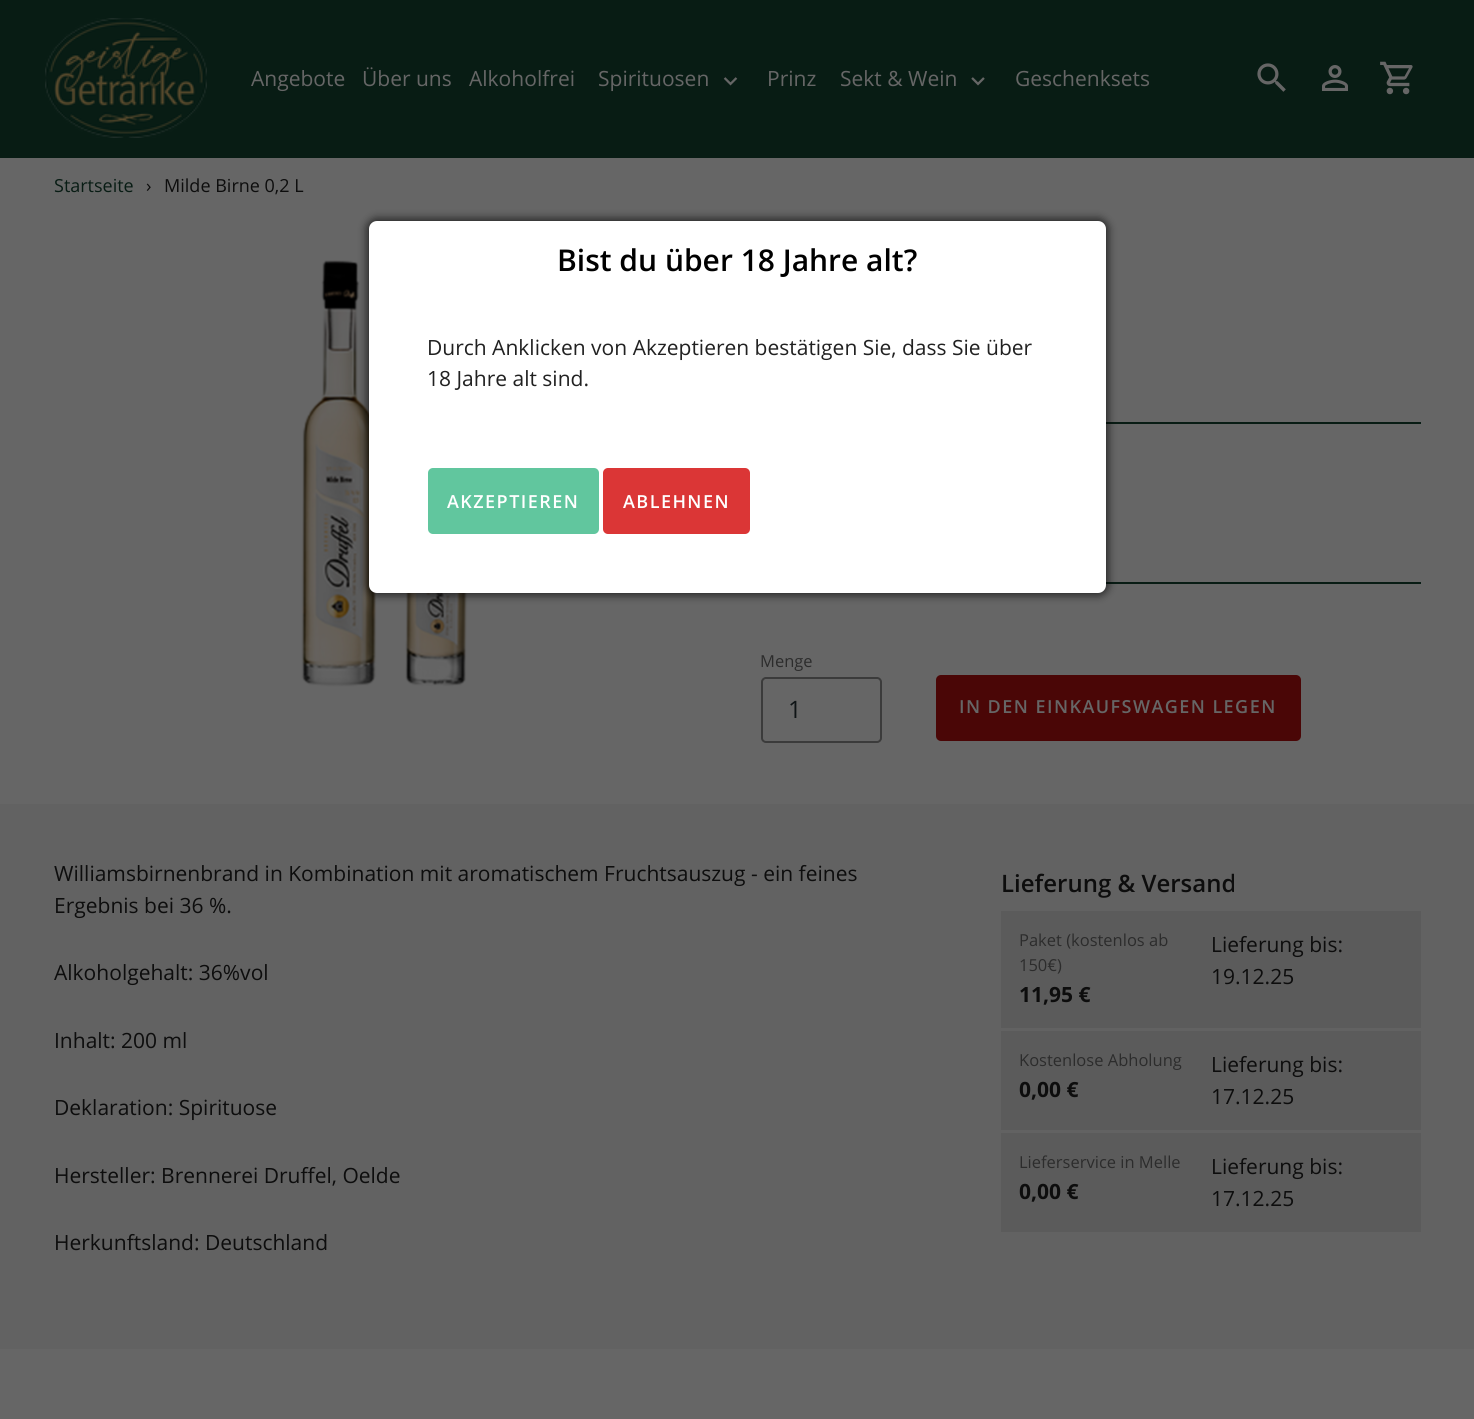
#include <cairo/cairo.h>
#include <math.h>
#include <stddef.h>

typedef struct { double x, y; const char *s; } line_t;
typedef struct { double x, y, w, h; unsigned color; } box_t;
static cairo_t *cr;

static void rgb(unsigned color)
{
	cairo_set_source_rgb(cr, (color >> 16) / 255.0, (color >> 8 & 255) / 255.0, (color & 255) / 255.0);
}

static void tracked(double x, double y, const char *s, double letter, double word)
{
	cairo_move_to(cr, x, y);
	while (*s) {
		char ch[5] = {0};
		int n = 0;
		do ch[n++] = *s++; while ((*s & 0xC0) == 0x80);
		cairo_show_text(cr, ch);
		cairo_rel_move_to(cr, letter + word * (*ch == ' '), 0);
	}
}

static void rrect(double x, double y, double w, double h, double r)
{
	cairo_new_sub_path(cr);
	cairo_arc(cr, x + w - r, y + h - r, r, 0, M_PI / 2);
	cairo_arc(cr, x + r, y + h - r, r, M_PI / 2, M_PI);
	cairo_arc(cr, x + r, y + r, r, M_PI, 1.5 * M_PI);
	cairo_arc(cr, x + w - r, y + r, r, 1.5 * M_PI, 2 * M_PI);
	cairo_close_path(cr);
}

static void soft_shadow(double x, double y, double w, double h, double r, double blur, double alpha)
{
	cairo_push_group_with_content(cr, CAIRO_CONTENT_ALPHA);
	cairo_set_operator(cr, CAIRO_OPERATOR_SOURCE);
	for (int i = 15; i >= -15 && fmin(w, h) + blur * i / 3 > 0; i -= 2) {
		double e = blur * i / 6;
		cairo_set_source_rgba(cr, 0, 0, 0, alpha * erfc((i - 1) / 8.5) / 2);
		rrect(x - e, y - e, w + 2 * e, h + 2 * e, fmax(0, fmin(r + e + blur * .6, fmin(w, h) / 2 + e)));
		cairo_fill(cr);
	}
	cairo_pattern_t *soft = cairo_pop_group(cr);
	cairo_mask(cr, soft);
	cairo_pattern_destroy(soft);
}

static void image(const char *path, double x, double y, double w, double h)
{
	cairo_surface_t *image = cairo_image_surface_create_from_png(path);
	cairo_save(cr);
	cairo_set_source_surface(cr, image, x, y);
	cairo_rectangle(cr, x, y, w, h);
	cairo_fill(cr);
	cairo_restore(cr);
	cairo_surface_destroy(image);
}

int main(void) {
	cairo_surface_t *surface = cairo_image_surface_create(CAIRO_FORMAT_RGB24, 1474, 1419);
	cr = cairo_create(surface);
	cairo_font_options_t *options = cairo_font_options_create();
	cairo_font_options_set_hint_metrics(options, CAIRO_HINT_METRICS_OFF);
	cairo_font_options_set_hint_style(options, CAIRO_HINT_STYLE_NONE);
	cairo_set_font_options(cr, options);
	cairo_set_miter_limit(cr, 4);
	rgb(0x666666);
	cairo_paint(cr);
	rgb(0x081c14);
	cairo_rectangle(cr, 0, 0, 1474, 158);
	cairo_fill(cr);
	image("img/1.png", 45, 18, 162, 120);
	image("img/2.png", 723, 77, 15, 9);
	image("img/3.png", 971, 77, 14, 9);
	image("img/4.png", 1257, 63, 29, 29);
	image("img/5.png", 1322, 65, 26, 26);
	image("img/6.png", 1380, 61, 33, 34);
	image("img/7.png", 301, 260, 167, 427);
	cairo_rectangle(cr, 1106, 422, 315, 2);
	cairo_fill(cr);
	cairo_rectangle(cr, 1106, 582, 315, 2);
	cairo_fill(cr);
	rrect(762, 678, 119, 64, 4);
	rgb(0x3b3b3b);
	cairo_stroke(cr);
	rgb(0x4a0606);
	rrect(936, 675, 365, 66, 5);
	cairo_fill(cr);
	{
		static const box_t items[] = {
			{0, 804, 1474, 545, 0x626262},
			{1001, 911, 420, 117, 0x5b5b5b},
			{1001, 1031, 420, 99, 0x5b5b5b},
			{1001, 1133, 420, 99, 0x5b5b5b},
		};
		for (size_t i = 0; i < sizeof items / sizeof *items; i++) {
			rgb(items[i].color);
			cairo_rectangle(cr, items[i].x, items[i].y, items[i].w, items[i].h);
			cairo_fill(cr);
		}
	}
	rgb(0x000000);
	soft_shadow(366, 218, 743, 378, 11, 4, 0.57);
	rgb(0xffffff);
	rrect(369, 221, 737, 372, 8);
	cairo_fill(cr);
	rgb(0x61c69e);
	rrect(428, 468, 171, 66, 5);
	cairo_fill(cr);
	rgb(0xdb3636);
	rrect(603, 468, 147, 66, 5);
	cairo_fill(cr);
	cairo_select_font_face(cr, "Open Sans", CAIRO_FONT_SLANT_NORMAL, CAIRO_FONT_WEIGHT_NORMAL);
	cairo_set_font_size(cr, 21);
	rgb(0x666666);
	{
		static const line_t items[] = {
			{251, 86, "Angebote"},
			{362, 86, "Über uns"},
			{469, 86, "Alkoholfrei"},
			{598, 86, "Spirituosen"},
			{767, 86, "Prinz"},
			{840, 86, "Sekt & Wein"},
			{1015, 86, "Geschenksets"},
		};
		for (size_t i = 0; i < sizeof items / sizeof *items; i++) {
			cairo_move_to(cr, items[i].x, items[i].y);
			cairo_show_text(cr, items[i].s);
		}
	}
	cairo_set_font_size(cr, 18);
	rgb(0x081c14);
	cairo_move_to(cr, 54, 192);
	cairo_show_text(cr, "Startseite");
	rgb(0x0d0d0d);
	cairo_move_to(cr, 146, 192);
	cairo_show_text(cr, "›");
	cairo_move_to(cr, 164, 192);
	cairo_show_text(cr, "Milde Birne 0,2 L");
	cairo_set_font_size(cr, 16.5);
	rgb(0x2c2c2c);
	cairo_move_to(cr, 760, 667);
	cairo_show_text(cr, "Menge");
	cairo_set_font_size(cr, 24);
	rgb(0x0f1416);
	cairo_move_to(cr, 788, 718);
	cairo_show_text(cr, "1");
	cairo_select_font_face(cr, "Open Sans SemiBold", CAIRO_FONT_SLANT_NORMAL, CAIRO_FONT_WEIGHT_NORMAL);
	cairo_set_font_size(cr, 18);
	rgb(0x666666);
	tracked(959, 713, "IN DEN EINKAUFSWAGEN LEGEN", 1.45, 0);
	cairo_select_font_face(cr, "Open Sans", CAIRO_FONT_SLANT_NORMAL, CAIRO_FONT_WEIGHT_NORMAL);
	cairo_set_font_size(cr, 21);
	rgb(0x0d0d0d);
	{
		static const line_t items[] = {
			{54, 881, "Williamsbirnenbrand in Kombination mit aromatischem Fruchtsauszug - ein feines"},
			{54, 913, "Ergebnis bei 36 %."},
			{54, 980, "Alkoholgehalt: 36%vol"},
			{54, 1048, "Inhalt: 200 ml"},
			{54, 1115, "Deklaration: Spirituose"},
			{54, 1183, "Hersteller: Brennerei Druffel, Oelde"},
			{54, 1250, "Herkunftsland: Deutschland"},
		};
		for (size_t i = 0; i < sizeof items / sizeof *items; i++) {
			cairo_move_to(cr, items[i].x, items[i].y);
			cairo_show_text(cr, items[i].s);
		}
	}
	cairo_select_font_face(cr, "Open Sans SemiBold", CAIRO_FONT_SLANT_NORMAL, CAIRO_FONT_WEIGHT_NORMAL);
	cairo_set_font_size(cr, 24);
	cairo_move_to(cr, 1001, 892);
	cairo_show_text(cr, "Lieferung & Versand");
	cairo_select_font_face(cr, "Open Sans", CAIRO_FONT_SLANT_NORMAL, CAIRO_FONT_WEIGHT_NORMAL);
	cairo_set_font_size(cr, 16.5);
	rgb(0x2c2c2c);
	cairo_move_to(cr, 1019, 946);
	cairo_show_text(cr, "Paket (kostenlos ab");
	cairo_move_to(cr, 1019, 971);
	cairo_show_text(cr, "150€)");
	cairo_select_font_face(cr, "Open Sans", CAIRO_FONT_SLANT_NORMAL, CAIRO_FONT_WEIGHT_BOLD);
	cairo_set_font_size(cr, 21);
	rgb(0x0d0d0d);
	cairo_move_to(cr, 1019, 1002);
	cairo_show_text(cr, "11,95 €");
	cairo_select_font_face(cr, "Open Sans", CAIRO_FONT_SLANT_NORMAL, CAIRO_FONT_WEIGHT_NORMAL);
	cairo_move_to(cr, 1211, 952);
	cairo_show_text(cr, "Lieferung bis:");
	cairo_move_to(cr, 1211, 984);
	cairo_show_text(cr, "19.12.25");
	cairo_set_font_size(cr, 16.5);
	rgb(0x2c2c2c);
	cairo_move_to(cr, 1019, 1066);
	cairo_show_text(cr, "Kostenlose Abholung");
	cairo_select_font_face(cr, "Open Sans", CAIRO_FONT_SLANT_NORMAL, CAIRO_FONT_WEIGHT_BOLD);
	cairo_set_font_size(cr, 21);
	rgb(0x0d0d0d);
	cairo_move_to(cr, 1019, 1097);
	cairo_show_text(cr, "0,00 €");
	cairo_select_font_face(cr, "Open Sans", CAIRO_FONT_SLANT_NORMAL, CAIRO_FONT_WEIGHT_NORMAL);
	cairo_move_to(cr, 1211, 1072);
	cairo_show_text(cr, "Lieferung bis:");
	cairo_move_to(cr, 1211, 1104);
	cairo_show_text(cr, "17.12.25");
	cairo_set_font_size(cr, 16.5);
	rgb(0x2c2c2c);
	cairo_move_to(cr, 1019, 1168);
	cairo_show_text(cr, "Lieferservice in Melle");
	cairo_select_font_face(cr, "Open Sans", CAIRO_FONT_SLANT_NORMAL, CAIRO_FONT_WEIGHT_BOLD);
	cairo_set_font_size(cr, 21);
	rgb(0x0d0d0d);
	cairo_move_to(cr, 1019, 1199);
	cairo_show_text(cr, "0,00 €");
	cairo_select_font_face(cr, "Open Sans", CAIRO_FONT_SLANT_NORMAL, CAIRO_FONT_WEIGHT_NORMAL);
	cairo_move_to(cr, 1211, 1174);
	cairo_show_text(cr, "Lieferung bis:");
	cairo_move_to(cr, 1211, 1206);
	cairo_show_text(cr, "17.12.25");
	cairo_select_font_face(cr, "Open Sans SemiBold", CAIRO_FONT_SLANT_NORMAL, CAIRO_FONT_WEIGHT_NORMAL);
	cairo_set_font_size(cr, 30);
	rgb(0x000000);
	cairo_move_to(cr, 557, 271);
	cairo_show_text(cr, "Bist du über 18 Jahre alt?");
	cairo_select_font_face(cr, "Open Sans", CAIRO_FONT_SLANT_NORMAL, CAIRO_FONT_WEIGHT_NORMAL);
	cairo_set_font_size(cr, 21);
	rgb(0x212121);
	cairo_move_to(cr, 427, 355);
	cairo_show_text(cr, "Durch Anklicken von Akzeptieren bestätigen Sie, dass Sie über");
	cairo_move_to(cr, 427, 386);
	cairo_show_text(cr, "18 Jahre alt sind.");
	cairo_select_font_face(cr, "Open Sans SemiBold", CAIRO_FONT_SLANT_NORMAL, CAIRO_FONT_WEIGHT_NORMAL);
	cairo_set_font_size(cr, 18);
	rgb(0xffffff);
	tracked(447, 508, "AKZEPTIEREN", 1.45, 0);
	tracked(623, 508, "ABLEHNEN", 1.45, 0);
	cairo_surface_write_to_png(surface, "page.png");
	cairo_font_options_destroy(options);
	cairo_destroy(cr);
	cairo_surface_destroy(surface);
	return 0;
}
